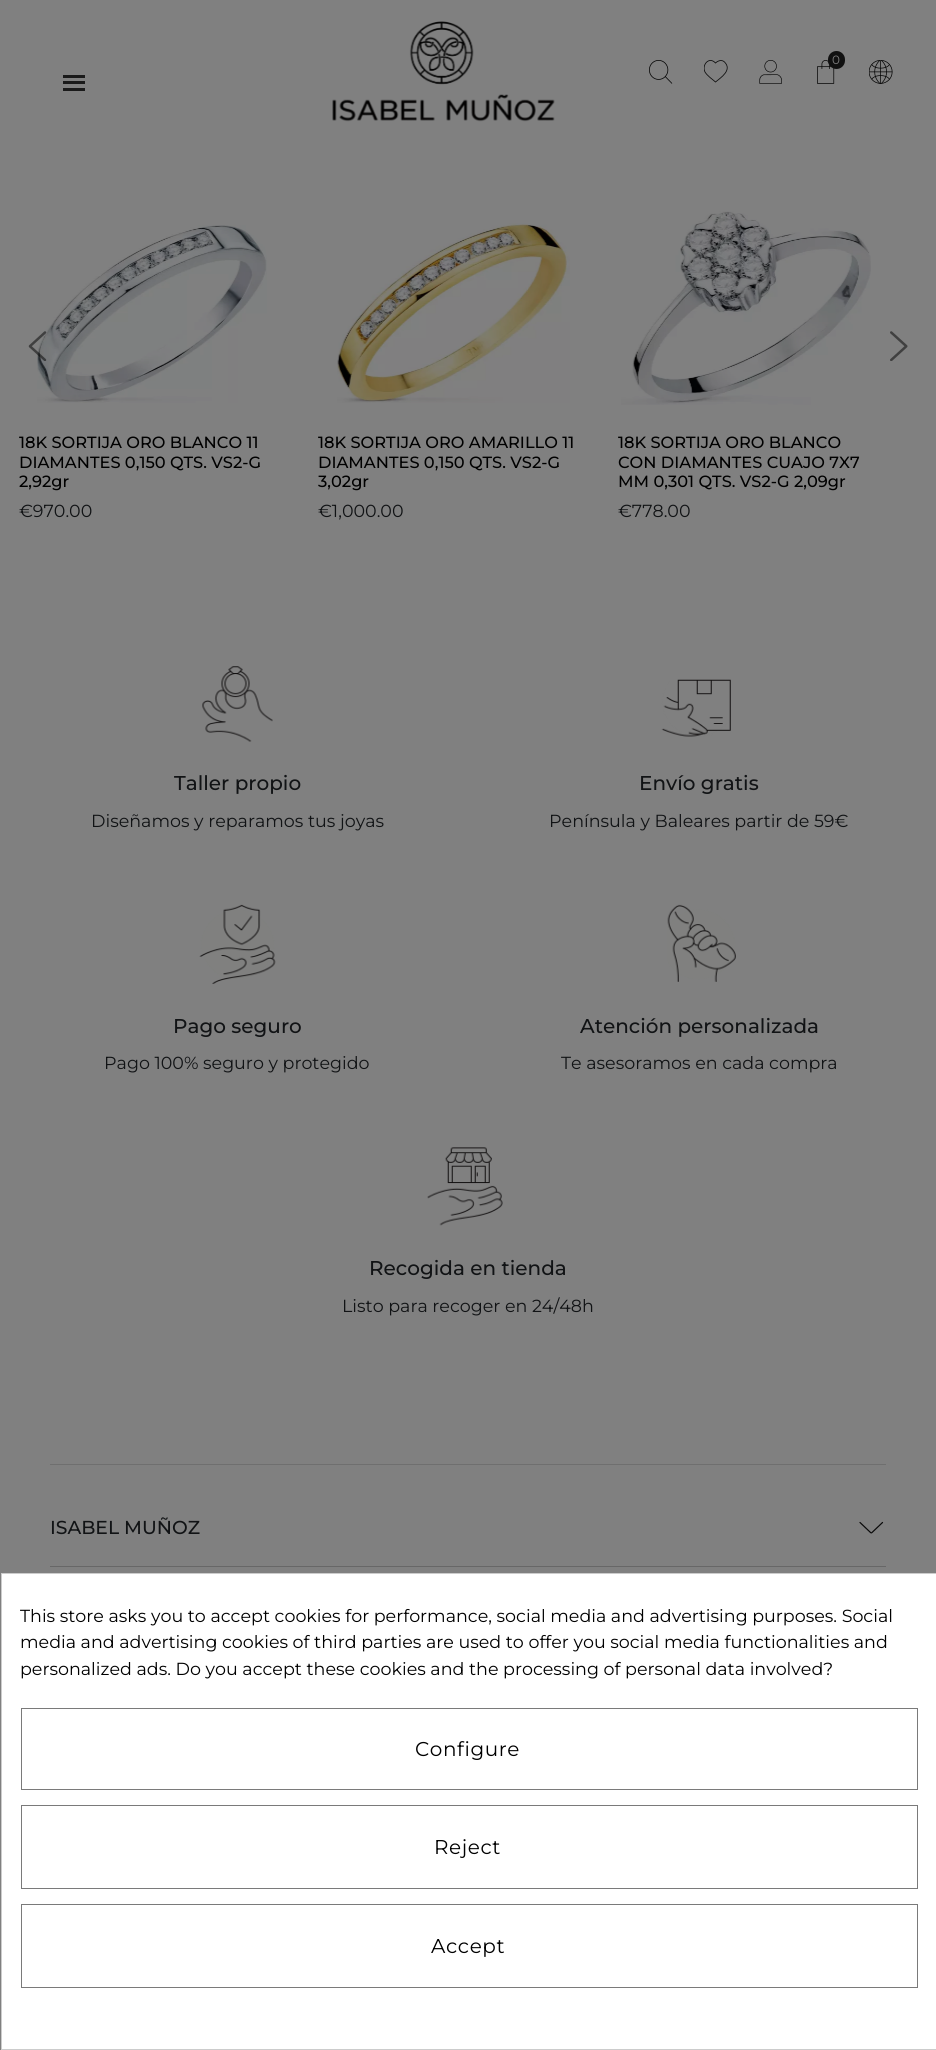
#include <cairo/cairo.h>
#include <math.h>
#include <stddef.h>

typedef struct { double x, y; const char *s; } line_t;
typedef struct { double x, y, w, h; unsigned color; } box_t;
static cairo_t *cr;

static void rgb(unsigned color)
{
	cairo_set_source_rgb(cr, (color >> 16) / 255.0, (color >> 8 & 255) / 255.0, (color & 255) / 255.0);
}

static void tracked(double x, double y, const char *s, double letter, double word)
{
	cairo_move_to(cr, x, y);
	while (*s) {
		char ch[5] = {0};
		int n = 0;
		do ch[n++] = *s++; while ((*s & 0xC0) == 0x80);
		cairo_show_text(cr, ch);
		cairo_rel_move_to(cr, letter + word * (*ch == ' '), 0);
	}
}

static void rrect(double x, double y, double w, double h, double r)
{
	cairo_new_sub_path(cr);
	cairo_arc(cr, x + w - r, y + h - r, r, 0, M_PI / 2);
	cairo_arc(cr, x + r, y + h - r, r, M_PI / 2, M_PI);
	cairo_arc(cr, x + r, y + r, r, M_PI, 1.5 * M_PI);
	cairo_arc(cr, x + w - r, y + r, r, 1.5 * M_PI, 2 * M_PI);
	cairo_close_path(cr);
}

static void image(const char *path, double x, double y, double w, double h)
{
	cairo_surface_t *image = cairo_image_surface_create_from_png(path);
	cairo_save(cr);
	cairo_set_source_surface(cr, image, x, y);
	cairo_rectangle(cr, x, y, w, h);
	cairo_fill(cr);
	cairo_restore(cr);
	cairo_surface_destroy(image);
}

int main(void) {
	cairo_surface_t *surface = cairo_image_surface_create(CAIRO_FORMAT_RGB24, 936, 2050);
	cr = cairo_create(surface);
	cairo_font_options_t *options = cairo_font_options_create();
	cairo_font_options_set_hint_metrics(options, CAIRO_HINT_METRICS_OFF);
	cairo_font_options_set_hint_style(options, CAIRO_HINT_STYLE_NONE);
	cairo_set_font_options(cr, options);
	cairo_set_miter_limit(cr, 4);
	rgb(0x808080);
	cairo_paint(cr);
	image("img/1.png", 332, 21, 223, 101);
	image("img/2.png", 649, 60, 24, 24);
	cairo_save(cr);
	cairo_rectangle(cr, 704, 60, 24, 23);
	cairo_clip(cr);
	cairo_new_path(cr);
	cairo_move_to(cr, 724.5, 62);
	cairo_curve_to(cr, 722, 59.5, 718, 60.5, 715.5, 63);
	cairo_curve_to(cr, 709, 56, 701.5, 65, 705, 72);
	cairo_curve_to(cr, 707, 75.5, 712.5, 79.5, 715.5, 82);
	cairo_curve_to(cr, 721, 77.5, 732.5, 70, 724.5, 62);
	cairo_close_path(cr);
	rgb(0x0b0b0b);
	cairo_set_line_width(cr, 0.8);
	cairo_stroke(cr);
	cairo_restore(cr);
	image("img/3.png", 759, 60, 23, 24);
	image("img/4.png", 817, 60, 18, 24);
	rgb(0x111111);
	rrect(828, 51, 17, 18, 8.5);
	cairo_fill(cr);
	image("img/5.png", 869, 60, 24, 24);
	{
		static const box_t items[] = {
			{63, 75, 22, 3, 0x1a1a1a},
			{63, 81, 22, 3, 0x1a1a1a},
			{63, 88, 22, 3, 0x1a1a1a},
		};
		for (size_t i = 0; i < sizeof items / sizeof *items; i++) {
			rgb(items[i].color);
			cairo_rectangle(cr, items[i].x, items[i].y, items[i].w, items[i].h);
			cairo_fill(cr);
		}
	}
	image("img/8.png", 37, 225, 230, 178);
	image("img/6.png", 28, 331, 19, 30);
	image("img/7.png", 890, 331, 18, 30);
	image("img/9.png", 337, 223, 233, 180);
	image("img/10.png", 621, 211, 250, 194);
	image("img/11.png", 202, 666, 71, 76);
	image("img/12.png", 661, 679, 70, 58);
	image("img/13.png", 199, 904, 77, 80);
	image("img/14.png", 667, 904, 69, 78);
	image("img/15.png", 427, 1147, 76, 79);
	rgb(0x6f6f6f);
	cairo_rectangle(cr, 50, 1464, 836, 1);
	cairo_fill(cr);
	rgb(0x676767);
	cairo_rectangle(cr, 50, 1566, 836, 1);
	cairo_fill(cr);
	cairo_new_path(cr);
	cairo_move_to(cr, 860, 1522.5);
	cairo_line_to(cr, 870.5, 1532.5);
	cairo_curve_to(cr, 871, 1533, 871.5, 1533, 872, 1532.5);
	cairo_line_to(cr, 882.5, 1522.5);
	rgb(0x080808);
	cairo_set_line_width(cr, 1.2);
	cairo_set_line_cap(cr, CAIRO_LINE_CAP_ROUND);
	cairo_set_line_join(cr, CAIRO_LINE_JOIN_ROUND);
	cairo_stroke(cr);
	rgb(0xffffff);
	cairo_rectangle(cr, 1.5, 1573.5, 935, 476);
	cairo_fill_preserve(cr);
	rgb(0xcccccc);
	cairo_set_line_width(cr, 1);
	cairo_set_line_cap(cr, CAIRO_LINE_CAP_BUTT);
	cairo_set_line_join(cr, CAIRO_LINE_JOIN_MITER);
	cairo_stroke(cr);
	cairo_rectangle(cr, 21.5, 1708.5, 896, 81);
	rgb(0x7a7a7a);
	cairo_stroke(cr);
	cairo_rectangle(cr, 21.5, 1805.5, 896, 83);
	cairo_stroke(cr);
	cairo_rectangle(cr, 21.5, 1904.5, 896, 83);
	cairo_stroke(cr);
	cairo_select_font_face(cr, "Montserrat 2 Thin", CAIRO_FONT_SLANT_NORMAL, CAIRO_FONT_WEIGHT_NORMAL);
	cairo_set_font_size(cr, 12);
	rgb(0x808080);
	cairo_move_to(cr, 832, 64);
	cairo_show_text(cr, "0");
	cairo_select_font_face(cr, "Montserrat Thin", CAIRO_FONT_SLANT_NORMAL, CAIRO_FONT_WEIGHT_NORMAL);
	cairo_set_font_size(cr, 16.25);
	rgb(0x000000);
	{
		static const line_t items[] = {
			{19, 448, "18K SORTIJA ORO BLANCO 11"},
			{19, 468, "DIAMANTES 0,150 QTS. VS2-G"},
			{19, 487, "2,92gr"},
		};
		for (size_t i = 0; i < sizeof items / sizeof *items; i++) {
			cairo_move_to(cr, items[i].x, items[i].y);
			cairo_show_text(cr, items[i].s);
		}
	}
	cairo_select_font_face(cr, "Montserrat 2 Thin", CAIRO_FONT_SLANT_NORMAL, CAIRO_FONT_WEIGHT_NORMAL);
	cairo_set_font_size(cr, 17.5);
	rgb(0x111315);
	cairo_move_to(cr, 19, 517);
	cairo_show_text(cr, "€970.00");
	cairo_select_font_face(cr, "Montserrat Thin", CAIRO_FONT_SLANT_NORMAL, CAIRO_FONT_WEIGHT_NORMAL);
	cairo_set_font_size(cr, 16.25);
	rgb(0x000000);
	{
		static const line_t items[] = {
			{318, 448, "18K SORTIJA ORO AMARILLO 11"},
			{318, 468, "DIAMANTES 0,150 QTS. VS2-G"},
			{318, 487, "3,02gr"},
		};
		for (size_t i = 0; i < sizeof items / sizeof *items; i++) {
			cairo_move_to(cr, items[i].x, items[i].y);
			cairo_show_text(cr, items[i].s);
		}
	}
	cairo_select_font_face(cr, "Montserrat 2 Thin", CAIRO_FONT_SLANT_NORMAL, CAIRO_FONT_WEIGHT_NORMAL);
	cairo_set_font_size(cr, 17.5);
	rgb(0x111315);
	cairo_move_to(cr, 318, 517);
	cairo_show_text(cr, "€1,000.00");
	cairo_select_font_face(cr, "Montserrat Thin", CAIRO_FONT_SLANT_NORMAL, CAIRO_FONT_WEIGHT_NORMAL);
	cairo_set_font_size(cr, 16.25);
	rgb(0x000000);
	{
		static const line_t items[] = {
			{618, 448, "18K SORTIJA ORO BLANCO"},
			{618, 468, "CON DIAMANTES CUAJO 7X7"},
			{618, 487, "MM 0,301 QTS. VS2-G 2,09gr"},
		};
		for (size_t i = 0; i < sizeof items / sizeof *items; i++) {
			cairo_move_to(cr, items[i].x, items[i].y);
			cairo_show_text(cr, items[i].s);
		}
	}
	cairo_select_font_face(cr, "Montserrat 2 Thin", CAIRO_FONT_SLANT_NORMAL, CAIRO_FONT_WEIGHT_NORMAL);
	cairo_set_font_size(cr, 17.5);
	rgb(0x111315);
	cairo_move_to(cr, 618, 517);
	cairo_show_text(cr, "€778.00");
	cairo_select_font_face(cr, "Montserrat Thin", CAIRO_FONT_SLANT_NORMAL, CAIRO_FONT_WEIGHT_NORMAL);
	cairo_set_font_size(cr, 20);
	cairo_move_to(cr, 174, 790);
	cairo_show_text(cr, "Taller propio");
	cairo_select_font_face(cr, "Montserrat 2 Thin", CAIRO_FONT_SLANT_NORMAL, CAIRO_FONT_WEIGHT_NORMAL);
	cairo_set_font_size(cr, 17.5);
	cairo_move_to(cr, 91, 827);
	cairo_show_text(cr, "Diseñamos y reparamos tus joyas");
	cairo_select_font_face(cr, "Montserrat Thin", CAIRO_FONT_SLANT_NORMAL, CAIRO_FONT_WEIGHT_NORMAL);
	cairo_set_font_size(cr, 20);
	cairo_move_to(cr, 639, 790);
	cairo_show_text(cr, "Envío gratis");
	cairo_select_font_face(cr, "Montserrat 2 Thin", CAIRO_FONT_SLANT_NORMAL, CAIRO_FONT_WEIGHT_NORMAL);
	cairo_set_font_size(cr, 17.5);
	cairo_move_to(cr, 549, 827);
	cairo_show_text(cr, "Península y Baleares partir de 59€");
	cairo_select_font_face(cr, "Montserrat Thin", CAIRO_FONT_SLANT_NORMAL, CAIRO_FONT_WEIGHT_NORMAL);
	cairo_set_font_size(cr, 20);
	cairo_move_to(cr, 173, 1033);
	cairo_show_text(cr, "Pago seguro");
	cairo_select_font_face(cr, "Montserrat 2 Thin", CAIRO_FONT_SLANT_NORMAL, CAIRO_FONT_WEIGHT_NORMAL);
	cairo_set_font_size(cr, 17.5);
	cairo_move_to(cr, 104, 1069);
	cairo_show_text(cr, "Pago 100% seguro y protegido");
	cairo_select_font_face(cr, "Montserrat Thin", CAIRO_FONT_SLANT_NORMAL, CAIRO_FONT_WEIGHT_NORMAL);
	cairo_set_font_size(cr, 20);
	cairo_move_to(cr, 580, 1033);
	cairo_show_text(cr, "Atención personalizada");
	cairo_select_font_face(cr, "Montserrat 2 Thin", CAIRO_FONT_SLANT_NORMAL, CAIRO_FONT_WEIGHT_NORMAL);
	cairo_set_font_size(cr, 17.5);
	cairo_move_to(cr, 561, 1069);
	cairo_show_text(cr, "Te asesoramos en cada compra");
	cairo_select_font_face(cr, "Montserrat Thin", CAIRO_FONT_SLANT_NORMAL, CAIRO_FONT_WEIGHT_NORMAL);
	cairo_set_font_size(cr, 20);
	cairo_move_to(cr, 369, 1275);
	cairo_show_text(cr, "Recogida en tienda");
	cairo_select_font_face(cr, "Montserrat 2 Thin", CAIRO_FONT_SLANT_NORMAL, CAIRO_FONT_WEIGHT_NORMAL);
	cairo_set_font_size(cr, 17.5);
	cairo_move_to(cr, 342, 1312);
	cairo_show_text(cr, "Listo para recoger en 24/48h");
	cairo_select_font_face(cr, "Montserrat Thin", CAIRO_FONT_SLANT_NORMAL, CAIRO_FONT_WEIGHT_NORMAL);
	cairo_set_font_size(cr, 18.75);
	cairo_move_to(cr, 50, 1534);
	cairo_show_text(cr, "ISABEL MUÑOZ");
	cairo_select_font_face(cr, "Montserrat 2 Thin", CAIRO_FONT_SLANT_NORMAL, CAIRO_FONT_WEIGHT_NORMAL);
	cairo_set_font_size(cr, 17.5);
	rgb(0x000000);
	{
		static const line_t items[] = {
			{20, 1622, "This store asks you to accept cookies for performance, social media and advertising purposes. Social"},
			{20, 1648, "media and advertising cookies of third parties are used to offer you social media functionalities and"},
			{20, 1675, "personalized ads. Do you accept these cookies and the processing of personal data involved?"},
		};
		for (size_t i = 0; i < sizeof items / sizeof *items; i++) {
			cairo_move_to(cr, items[i].x, items[i].y);
			cairo_show_text(cr, items[i].s);
		}
	}
	cairo_set_font_size(cr, 20);
	{
		static const line_t items[] = {
			{415, 1756, "Configure"},
			{434, 1854, "Reject"},
			{431, 1953, "Accept"},
		};
		for (size_t i = 0; i < sizeof items / sizeof *items; i++) {
			tracked(items[i].x, items[i].y, items[i].s, 0.6, 0);
		}
	}
	cairo_surface_write_to_png(surface, "page.png");
	cairo_font_options_destroy(options);
	cairo_destroy(cr);
	cairo_surface_destroy(surface);
	return 0;
}
